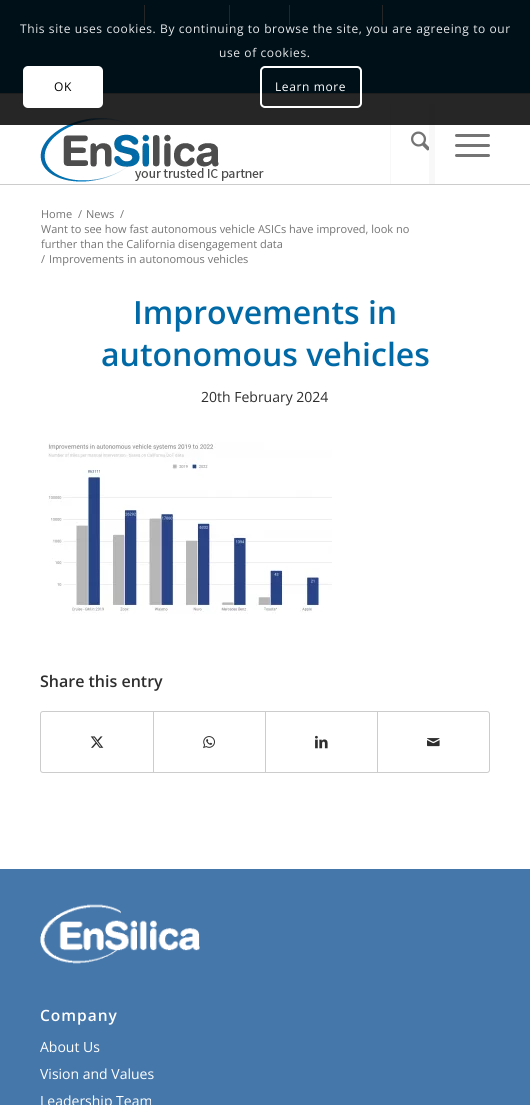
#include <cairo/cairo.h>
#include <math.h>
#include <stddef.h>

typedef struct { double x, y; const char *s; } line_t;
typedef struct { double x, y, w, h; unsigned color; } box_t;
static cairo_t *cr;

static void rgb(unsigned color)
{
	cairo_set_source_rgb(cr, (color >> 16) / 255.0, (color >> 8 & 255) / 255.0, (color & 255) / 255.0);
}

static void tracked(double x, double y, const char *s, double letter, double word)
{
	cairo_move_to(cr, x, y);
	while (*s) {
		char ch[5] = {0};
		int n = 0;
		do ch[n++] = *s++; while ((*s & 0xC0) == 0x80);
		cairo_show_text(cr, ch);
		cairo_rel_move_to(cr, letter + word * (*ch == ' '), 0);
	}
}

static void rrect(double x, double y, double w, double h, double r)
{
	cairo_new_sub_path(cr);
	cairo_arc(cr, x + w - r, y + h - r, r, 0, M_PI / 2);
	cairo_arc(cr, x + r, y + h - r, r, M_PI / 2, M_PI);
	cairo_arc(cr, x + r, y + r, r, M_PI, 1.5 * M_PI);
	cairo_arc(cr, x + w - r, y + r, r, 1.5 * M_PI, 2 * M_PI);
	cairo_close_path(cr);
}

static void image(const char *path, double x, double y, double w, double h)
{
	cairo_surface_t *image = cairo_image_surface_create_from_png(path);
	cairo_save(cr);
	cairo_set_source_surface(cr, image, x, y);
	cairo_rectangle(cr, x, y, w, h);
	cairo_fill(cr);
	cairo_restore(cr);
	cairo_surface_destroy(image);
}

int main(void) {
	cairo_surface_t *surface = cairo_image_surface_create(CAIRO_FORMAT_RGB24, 530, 1105);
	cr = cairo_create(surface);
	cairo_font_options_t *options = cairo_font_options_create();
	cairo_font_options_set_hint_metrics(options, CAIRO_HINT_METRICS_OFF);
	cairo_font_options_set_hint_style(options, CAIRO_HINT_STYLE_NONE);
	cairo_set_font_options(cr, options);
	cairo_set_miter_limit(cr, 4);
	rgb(0xffffff);
	cairo_paint(cr);
	{
		static const box_t items[] = {
			{0, 0, 530, 93, 0x0069a6},
			{0, 93, 530, 1, 0xcccccc},
			{144, 5, 1, 20, 0xffffff},
			{229, 5, 1, 20, 0xffffff},
			{289, 5, 1, 20, 0xffffff},
			{382, 5, 1, 20, 0xffffff},
		};
		for (size_t i = 0; i < sizeof items / sizeof *items; i++) {
			rgb(items[i].color);
			cairo_rectangle(cr, items[i].x, items[i].y, items[i].w, items[i].h);
			cairo_fill(cr);
		}
	}
	image("img/1.png", 40, 118, 224, 64);
	rgb(0xf8f8f8);
	cairo_rectangle(cr, 390, 104, 1, 80);
	cairo_fill(cr);
	cairo_rectangle(cr, 429, 104, 6, 80);
	cairo_fill(cr);
	cairo_set_source_rgba(cr, 0, 0, 0, 0.85);
	cairo_rectangle(cr, 0, 0, 530, 125);
	cairo_fill(cr);
	rgb(0xffffff);
	rrect(23, 66, 80, 42, 5);
	cairo_fill(cr);
	rrect(261, 67, 100, 40, 4);
	cairo_stroke(cr);
	rgb(0xcccccc);
	cairo_rectangle(cr, 0, 184, 530, 1);
	cairo_fill(cr);
	image("img/2.png", 411, 131, 18, 20);
	rgb(0x747474);
	rrect(455, 144, 35, 3, 1.5);
	cairo_fill(cr);
	rrect(455, 134, 35, 3, 1.5);
	cairo_fill(cr);
	rrect(455, 154, 35, 3, 1.5);
	cairo_fill(cr);
	image("img/3.png", 48, 442, 284, 172);
	rrect(40.5, 711.5, 449, 61, 2.5);
	rgb(0xcccccc);
	cairo_set_line_width(cr, 1);
	cairo_stroke(cr);
	image("img/4.png", 90, 736, 14, 12);
	cairo_rectangle(cr, 153, 712, 1, 60);
	cairo_fill(cr);
	image("img/5.png", 203, 736, 12, 13);
	cairo_rectangle(cr, 265, 712, 1, 60);
	cairo_fill(cr);
	image("img/6.png", 315, 735, 13, 14);
	cairo_rectangle(cr, 377, 712, 1, 60);
	cairo_fill(cr);
	image("img/7.png", 427, 738, 13, 9);
	rgb(0x4577ab);
	cairo_rectangle(cr, 0, 869, 530, 236);
	cairo_fill(cr);
	image("img/8.png", 40, 904, 160, 60);
	cairo_select_font_face(cr, "Open Sans", CAIRO_FONT_SLANT_NORMAL, CAIRO_FONT_WEIGHT_NORMAL);
	cairo_set_font_size(cr, 12);
	rgb(0xe6e7e8);
	tracked(20, 33, "This site uses cookies. By continuing to browse the site, you are agreeing to our", 0.6, 0);
	tracked(219, 57, "use of cookies.", 0.6, 0);
	rgb(0x000000);
	tracked(54, 91, "OK", 0.6, 0);
	rgb(0xffffff);
	tracked(275, 91, "Learn more", 0.6, 0);
	cairo_set_font_size(cr, 11);
	rgb(0x747474);
	{
		static const line_t items[] = {
			{41, 218, "Home"},
			{78, 218, "/"},
			{86, 218, "News"},
			{120, 218, "/"},
			{41, 233, "Want to see how fast autonomous vehicle ASICs have improved, look no"},
			{41, 248, "further than the California disengagement data"},
			{41, 263, "/"},
			{49, 263, "Improvements in autonomous vehicles"},
		};
		for (size_t i = 0; i < sizeof items / sizeof *items; i++) {
			cairo_move_to(cr, items[i].x, items[i].y);
			cairo_show_text(cr, items[i].s);
		}
	}
	cairo_select_font_face(cr, "Open Sans SemiBold", CAIRO_FONT_SLANT_NORMAL, CAIRO_FONT_WEIGHT_NORMAL);
	cairo_set_font_size(cr, 32);
	rgb(0x0069a6);
	cairo_move_to(cr, 133, 324);
	cairo_show_text(cr, "Improvements in");
	cairo_move_to(cr, 101, 366);
	cairo_show_text(cr, "autonomous vehicles");
	cairo_select_font_face(cr, "Open Sans", CAIRO_FONT_SLANT_NORMAL, CAIRO_FONT_WEIGHT_NORMAL);
	cairo_set_font_size(cr, 14);
	rgb(0x2e2e2e);
	cairo_move_to(cr, 201, 402);
	cairo_show_text(cr, "20th February 2024");
	cairo_select_font_face(cr, "Open Sans SemiBold", CAIRO_FONT_SLANT_NORMAL, CAIRO_FONT_WEIGHT_NORMAL);
	cairo_set_font_size(cr, 16);
	cairo_move_to(cr, 40, 687);
	cairo_show_text(cr, "Share this entry");
	cairo_set_font_size(cr, 15.5);
	rgb(0xffffff);
	tracked(40, 1021, "Company", 1, 0);
	cairo_select_font_face(cr, "Open Sans", CAIRO_FONT_SLANT_NORMAL, CAIRO_FONT_WEIGHT_NORMAL);
	cairo_set_font_size(cr, 14);
	{
		static const line_t items[] = {
			{40, 1052, "About Us"},
			{40, 1079, "Vision and Values"},
			{40, 1106, "Leadership Team"},
		};
		for (size_t i = 0; i < sizeof items / sizeof *items; i++) {
			cairo_move_to(cr, items[i].x, items[i].y);
			cairo_show_text(cr, items[i].s);
		}
	}
	cairo_surface_write_to_png(surface, "page.png");
	cairo_font_options_destroy(options);
	cairo_destroy(cr);
	cairo_surface_destroy(surface);
	return 0;
}
